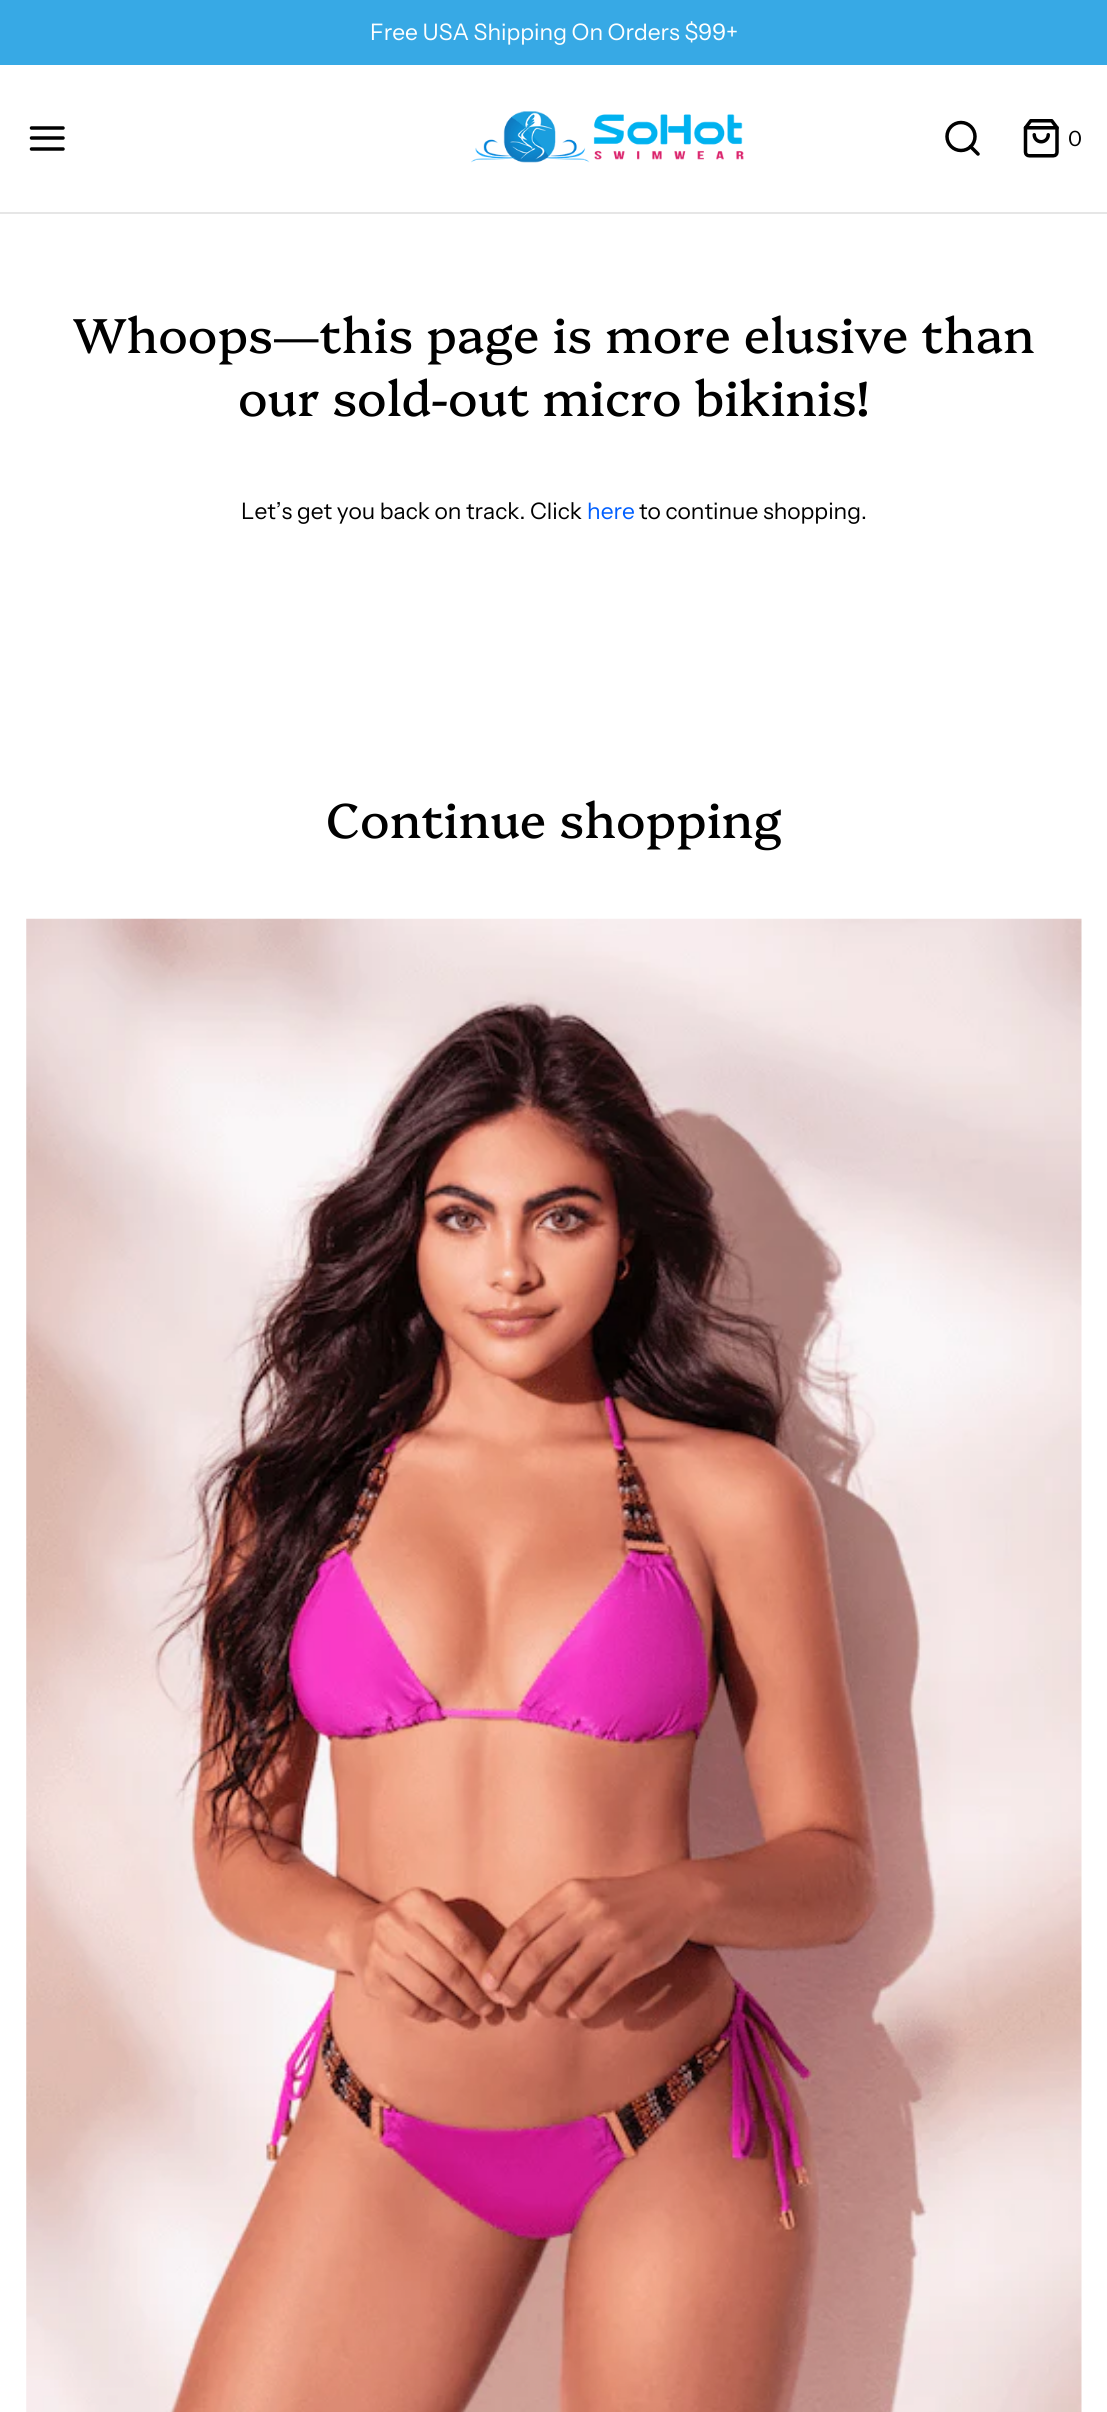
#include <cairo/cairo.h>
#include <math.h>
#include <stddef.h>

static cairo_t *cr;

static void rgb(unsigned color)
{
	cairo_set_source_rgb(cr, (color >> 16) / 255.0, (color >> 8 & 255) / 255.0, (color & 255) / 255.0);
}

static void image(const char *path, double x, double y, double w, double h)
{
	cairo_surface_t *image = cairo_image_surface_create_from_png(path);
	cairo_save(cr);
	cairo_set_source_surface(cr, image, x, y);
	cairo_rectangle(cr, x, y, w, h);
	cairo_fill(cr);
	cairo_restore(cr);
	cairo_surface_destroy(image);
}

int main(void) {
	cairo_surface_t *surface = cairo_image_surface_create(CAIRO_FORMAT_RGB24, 1107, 2412);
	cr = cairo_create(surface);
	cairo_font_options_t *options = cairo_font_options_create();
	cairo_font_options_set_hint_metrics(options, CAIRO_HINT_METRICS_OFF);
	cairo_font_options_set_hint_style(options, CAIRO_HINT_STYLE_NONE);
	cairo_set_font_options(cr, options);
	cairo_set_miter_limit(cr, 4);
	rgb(0xffffff);
	cairo_paint(cr);
	rgb(0x37a9e5);
	cairo_rectangle(cr, 0, 0, 1107, 65);
	cairo_fill(cr);
	rgb(0xe6e6e6);
	cairo_rectangle(cr, 0, 212, 1107, 2);
	cairo_fill(cr);
	cairo_new_path(cr);
	cairo_move_to(cr, 31.5, 138);
	cairo_line_to(cr, 63, 138);
	cairo_move_to(cr, 31.5, 128);
	cairo_line_to(cr, 63, 128);
	cairo_move_to(cr, 31.5, 149);
	cairo_line_to(cr, 63, 149);
	rgb(0x000000);
	cairo_set_line_width(cr, 3.5);
	cairo_set_line_cap(cr, CAIRO_LINE_CAP_ROUND);
	cairo_set_line_join(cr, CAIRO_LINE_JOIN_ROUND);
	cairo_stroke(cr);
	image("img/1.png", 471, 111, 273, 52);
	cairo_arc(cr, 961, 136.5, 14, 0, 2 * M_PI);
	cairo_set_line_cap(cr, CAIRO_LINE_CAP_BUTT);
	cairo_set_line_join(cr, CAIRO_LINE_JOIN_MITER);
	cairo_stroke(cr);
	cairo_new_path(cr);
	cairo_move_to(cr, 978, 154);
	cairo_line_to(cr, 970.5, 146.5);
	cairo_set_line_cap(cr, CAIRO_LINE_CAP_ROUND);
	cairo_set_line_join(cr, CAIRO_LINE_JOIN_ROUND);
	cairo_stroke(cr);
	image("img/2.png", 1023, 119, 36, 39);
	image("img/3.png", 26, 918, 1056, 1494);
	cairo_select_font_face(cr, "Instrument Sans", CAIRO_FONT_SLANT_NORMAL, CAIRO_FONT_WEIGHT_NORMAL);
	cairo_set_font_size(cr, 22.75);
	rgb(0xffffff);
	cairo_move_to(cr, 370, 40);
	cairo_show_text(cr, "Free USA Shipping On Orders $99+");
	cairo_set_font_size(cr, 21);
	rgb(0x000000);
	cairo_move_to(cr, 1068, 146);
	cairo_show_text(cr, "0");
	cairo_select_font_face(cr, "Platypi", CAIRO_FONT_SLANT_NORMAL, CAIRO_FONT_WEIGHT_NORMAL);
	cairo_set_font_size(cr, 49);
	cairo_move_to(cr, 73, 353);
	cairo_show_text(cr, "Whoops—this page is more elusive than");
	cairo_move_to(cr, 238, 416);
	cairo_show_text(cr, "our sold-out micro bikinis!");
	cairo_select_font_face(cr, "Instrument Sans", CAIRO_FONT_SLANT_NORMAL, CAIRO_FONT_WEIGHT_NORMAL);
	cairo_set_font_size(cr, 22.75);
	cairo_move_to(cr, 241, 519);
	cairo_show_text(cr, "Let’s get you back on track. Click");
	rgb(0x005fff);
	cairo_move_to(cr, 587, 519);
	cairo_show_text(cr, "here");
	rgb(0x000000);
	cairo_move_to(cr, 639, 519);
	cairo_show_text(cr, "to continue shopping.");
	cairo_select_font_face(cr, "Platypi", CAIRO_FONT_SLANT_NORMAL, CAIRO_FONT_WEIGHT_NORMAL);
	cairo_set_font_size(cr, 49);
	cairo_move_to(cr, 326, 838);
	cairo_show_text(cr, "Continue shopping");
	cairo_surface_write_to_png(surface, "page.png");
	cairo_font_options_destroy(options);
	cairo_destroy(cr);
	cairo_surface_destroy(surface);
	return 0;
}
